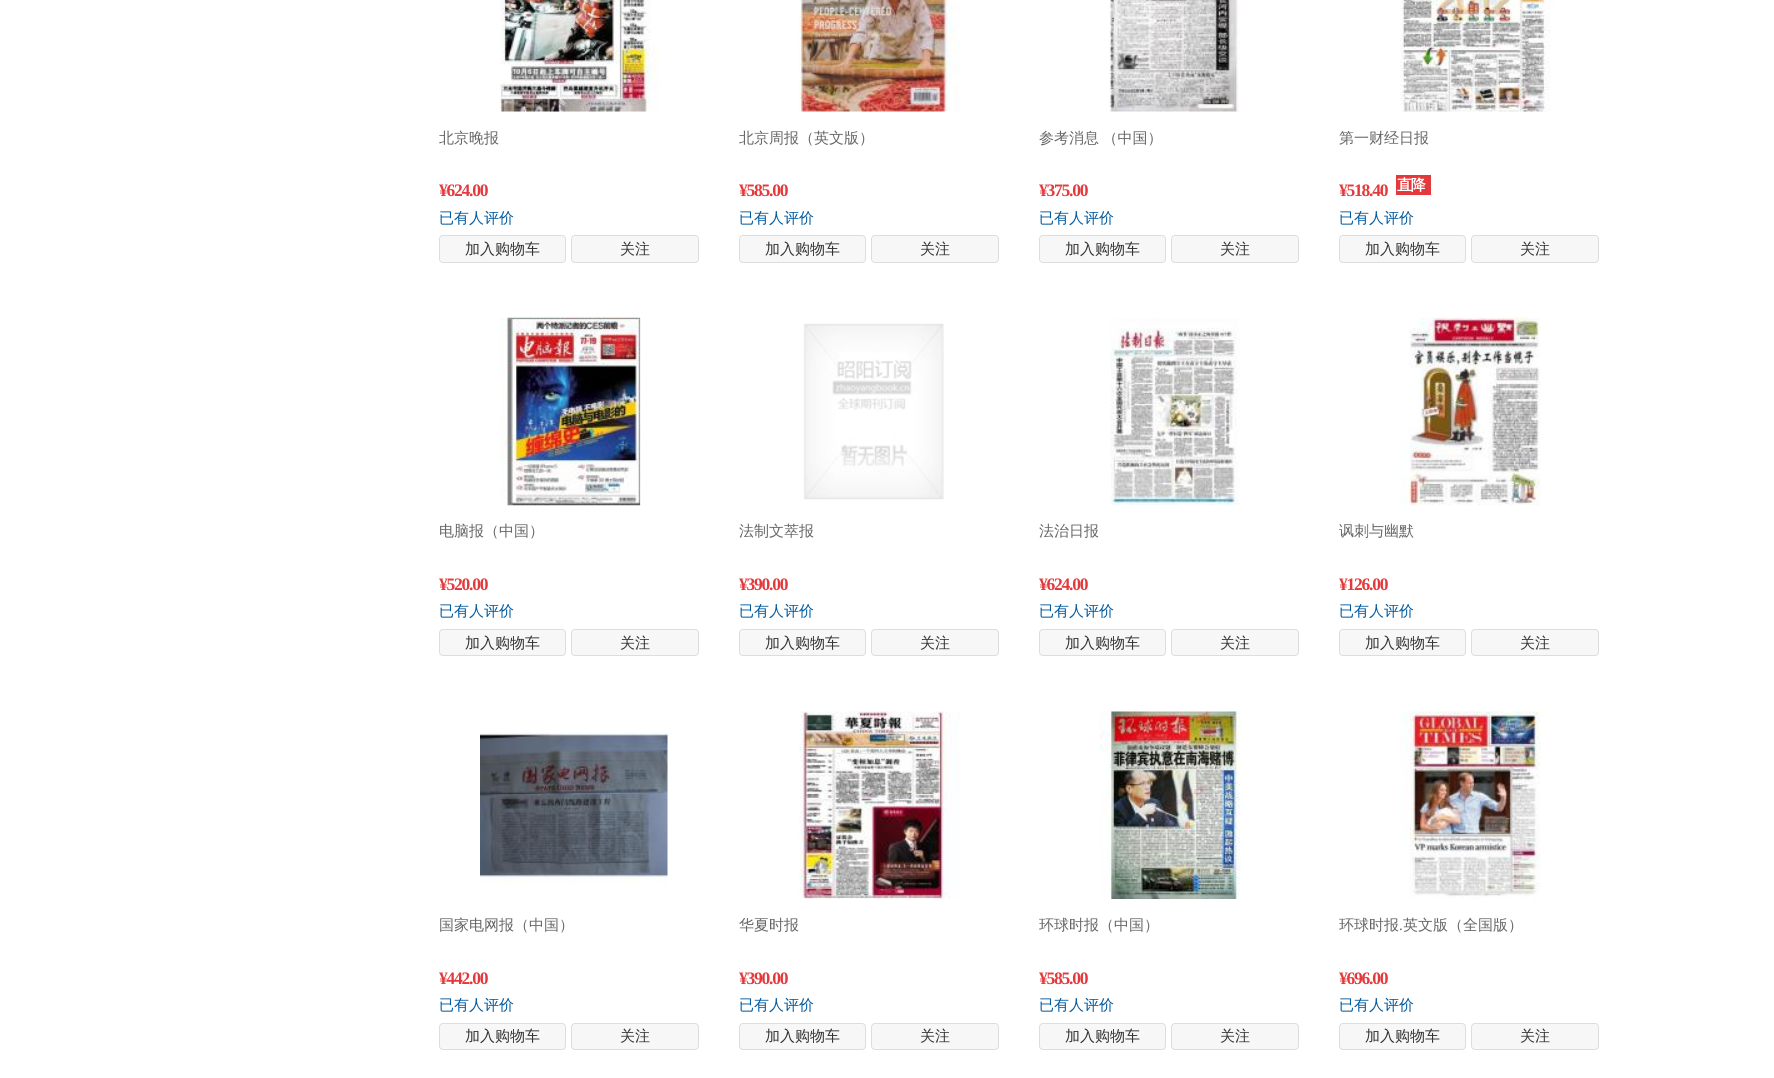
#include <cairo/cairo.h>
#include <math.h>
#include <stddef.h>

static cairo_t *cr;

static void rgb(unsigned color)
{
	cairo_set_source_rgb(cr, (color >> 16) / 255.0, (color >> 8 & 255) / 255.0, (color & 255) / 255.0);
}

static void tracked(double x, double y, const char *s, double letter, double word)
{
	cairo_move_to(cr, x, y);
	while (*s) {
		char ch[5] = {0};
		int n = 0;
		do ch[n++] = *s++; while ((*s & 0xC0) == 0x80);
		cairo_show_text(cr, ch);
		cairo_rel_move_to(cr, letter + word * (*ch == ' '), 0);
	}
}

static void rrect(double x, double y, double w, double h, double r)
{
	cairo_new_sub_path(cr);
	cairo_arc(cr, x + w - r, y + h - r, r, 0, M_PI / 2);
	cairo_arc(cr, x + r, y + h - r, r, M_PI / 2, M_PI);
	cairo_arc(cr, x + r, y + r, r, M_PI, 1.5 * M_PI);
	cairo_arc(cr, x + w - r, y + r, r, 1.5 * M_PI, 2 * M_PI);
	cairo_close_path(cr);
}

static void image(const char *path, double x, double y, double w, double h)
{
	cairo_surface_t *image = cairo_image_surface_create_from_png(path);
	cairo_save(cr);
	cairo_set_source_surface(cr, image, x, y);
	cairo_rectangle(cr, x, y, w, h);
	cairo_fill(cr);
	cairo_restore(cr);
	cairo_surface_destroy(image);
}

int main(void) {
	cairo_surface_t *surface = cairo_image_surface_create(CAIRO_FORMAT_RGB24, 1774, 1078);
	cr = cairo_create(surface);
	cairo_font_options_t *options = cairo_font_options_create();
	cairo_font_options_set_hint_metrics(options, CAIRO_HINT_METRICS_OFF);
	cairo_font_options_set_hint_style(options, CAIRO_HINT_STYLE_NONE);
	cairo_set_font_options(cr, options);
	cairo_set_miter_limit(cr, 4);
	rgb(0xffffff);
	cairo_paint(cr);
	image("img/1.png", 500, 0, 160, 112);
	rgb(0xf7f7f7);
	rrect(439.5, 235.5, 126, 27, 3.5);
	cairo_fill_preserve(cr);
	rgb(0xdddddd);
	cairo_set_line_width(cr, 1);
	cairo_stroke(cr);
	rgb(0xf7f7f7);
	rrect(571.5, 235.5, 127, 27, 3.5);
	cairo_fill_preserve(cr);
	rgb(0xdddddd);
	cairo_stroke(cr);
	image("img/2.png", 799, 0, 161, 112);
	rgb(0xf7f7f7);
	rrect(739.5, 235.5, 126, 27, 3.5);
	cairo_fill_preserve(cr);
	rgb(0xdddddd);
	cairo_stroke(cr);
	rgb(0xf7f7f7);
	rrect(871.5, 235.5, 127, 27, 3.5);
	cairo_fill_preserve(cr);
	rgb(0xdddddd);
	cairo_stroke(cr);
	image("img/3.png", 1109, 0, 131, 112);
	rgb(0xf7f7f7);
	rrect(1039.5, 235.5, 126, 27, 3.5);
	cairo_fill_preserve(cr);
	rgb(0xdddddd);
	cairo_stroke(cr);
	rgb(0xf7f7f7);
	rrect(1171.5, 235.5, 127, 27, 3.5);
	cairo_fill_preserve(cr);
	rgb(0xdddddd);
	cairo_stroke(cr);
	image("img/4.png", 1400, 0, 156, 112);
	rgb(0xe4393c);
	cairo_rectangle(cr, 1396, 175, 35, 20);
	cairo_fill(cr);
	rgb(0xf7f7f7);
	rrect(1339.5, 235.5, 126, 27, 3.5);
	cairo_fill_preserve(cr);
	rgb(0xdddddd);
	cairo_stroke(cr);
	rgb(0xf7f7f7);
	rrect(1471.5, 235.5, 127, 27, 3.5);
	cairo_fill_preserve(cr);
	rgb(0xdddddd);
	cairo_stroke(cr);
	image("img/5.png", 499, 317, 142, 189);
	rgb(0xf7f7f7);
	rrect(439.5, 629.5, 126, 26, 3.5);
	cairo_fill_preserve(cr);
	rgb(0xdddddd);
	cairo_stroke(cr);
	rgb(0xf7f7f7);
	rrect(571.5, 629.5, 127, 26, 3.5);
	cairo_fill_preserve(cr);
	rgb(0xdddddd);
	cairo_stroke(cr);
	image("img/6.png", 803, 323, 141, 177);
	rgb(0xf7f7f7);
	rrect(739.5, 629.5, 126, 26, 3.5);
	cairo_fill_preserve(cr);
	rgb(0xdddddd);
	cairo_stroke(cr);
	rgb(0xf7f7f7);
	rrect(871.5, 629.5, 127, 26, 3.5);
	cairo_fill_preserve(cr);
	rgb(0xdddddd);
	cairo_stroke(cr);
	image("img/7.png", 1110, 318, 130, 188);
	rgb(0xf7f7f7);
	rrect(1039.5, 629.5, 126, 26, 3.5);
	cairo_fill_preserve(cr);
	rgb(0xdddddd);
	cairo_stroke(cr);
	rgb(0xf7f7f7);
	rrect(1171.5, 629.5, 127, 26, 3.5);
	cairo_fill_preserve(cr);
	rgb(0xdddddd);
	cairo_stroke(cr);
	image("img/8.png", 1400, 317, 141, 189);
	rgb(0xf7f7f7);
	rrect(1339.5, 629.5, 126, 26, 3.5);
	cairo_fill_preserve(cr);
	rgb(0xdddddd);
	cairo_stroke(cr);
	rgb(0xf7f7f7);
	rrect(1471.5, 629.5, 127, 26, 3.5);
	cairo_fill_preserve(cr);
	rgb(0xdddddd);
	cairo_stroke(cr);
	image("img/9.png", 480, 732, 188, 153);
	rgb(0xf7f7f7);
	rrect(439.5, 1023.5, 126, 26, 3.5);
	cairo_fill_preserve(cr);
	rgb(0xdddddd);
	cairo_stroke(cr);
	rgb(0xf7f7f7);
	rrect(571.5, 1023.5, 127, 26, 3.5);
	cairo_fill_preserve(cr);
	rgb(0xdddddd);
	cairo_stroke(cr);
	image("img/10.png", 799, 711, 161, 188);
	rgb(0xf7f7f7);
	rrect(739.5, 1023.5, 126, 26, 3.5);
	cairo_fill_preserve(cr);
	rgb(0xdddddd);
	cairo_stroke(cr);
	rgb(0xf7f7f7);
	rrect(871.5, 1023.5, 127, 26, 3.5);
	cairo_fill_preserve(cr);
	rgb(0xdddddd);
	cairo_stroke(cr);
	image("img/11.png", 1099, 711, 142, 188);
	rgb(0xf7f7f7);
	rrect(1039.5, 1023.5, 126, 26, 3.5);
	cairo_fill_preserve(cr);
	rgb(0xdddddd);
	cairo_stroke(cr);
	rgb(0xf7f7f7);
	rrect(1171.5, 1023.5, 127, 26, 3.5);
	cairo_fill_preserve(cr);
	rgb(0xdddddd);
	cairo_stroke(cr);
	image("img/12.png", 1400, 711, 141, 188);
	rgb(0xf7f7f7);
	rrect(1339.5, 1023.5, 126, 26, 3.5);
	cairo_fill_preserve(cr);
	rgb(0xdddddd);
	cairo_stroke(cr);
	rgb(0xf7f7f7);
	rrect(1471.5, 1023.5, 127, 26, 3.5);
	cairo_fill_preserve(cr);
	rgb(0xdddddd);
	cairo_stroke(cr);
	cairo_select_font_face(cr, "WenQuanYi Zen Hei Medium", CAIRO_FONT_SLANT_NORMAL, CAIRO_FONT_WEIGHT_NORMAL);
	cairo_set_font_size(cr, 15);
	rgb(0x666666);
	cairo_move_to(cr, 439, 143);
	cairo_show_text(cr, "北京晚报");
	cairo_select_font_face(cr, "Liberation Serif", CAIRO_FONT_SLANT_NORMAL, CAIRO_FONT_WEIGHT_BOLD);
	cairo_set_font_size(cr, 17.5);
	rgb(0xe4393c);
	tracked(439, 196, "¥624.00", -1.25, 0);
	cairo_select_font_face(cr, "WenQuanYi Zen Hei Medium", CAIRO_FONT_SLANT_NORMAL, CAIRO_FONT_WEIGHT_NORMAL);
	cairo_set_font_size(cr, 15);
	rgb(0x005aa0);
	cairo_move_to(cr, 439, 223);
	cairo_show_text(cr, "已有人评价");
	rgb(0x333333);
	cairo_move_to(cr, 465, 254);
	cairo_show_text(cr, "加入购物车");
	cairo_move_to(cr, 620, 254);
	cairo_show_text(cr, "关注");
	rgb(0x666666);
	cairo_move_to(cr, 739, 143);
	cairo_show_text(cr, "北京周报（英文版）");
	cairo_select_font_face(cr, "Liberation Serif", CAIRO_FONT_SLANT_NORMAL, CAIRO_FONT_WEIGHT_BOLD);
	cairo_set_font_size(cr, 17.5);
	rgb(0xe4393c);
	tracked(739, 196, "¥585.00", -1.25, 0);
	cairo_select_font_face(cr, "WenQuanYi Zen Hei Medium", CAIRO_FONT_SLANT_NORMAL, CAIRO_FONT_WEIGHT_NORMAL);
	cairo_set_font_size(cr, 15);
	rgb(0x005aa0);
	cairo_move_to(cr, 739, 223);
	cairo_show_text(cr, "已有人评价");
	rgb(0x333333);
	cairo_move_to(cr, 765, 254);
	cairo_show_text(cr, "加入购物车");
	cairo_move_to(cr, 920, 254);
	cairo_show_text(cr, "关注");
	rgb(0x666666);
	tracked(1039, 143, "参考消息 （中国）", 0, -1);
	cairo_select_font_face(cr, "Liberation Serif", CAIRO_FONT_SLANT_NORMAL, CAIRO_FONT_WEIGHT_BOLD);
	cairo_set_font_size(cr, 17.5);
	rgb(0xe4393c);
	tracked(1039, 196, "¥375.00", -1.25, 0);
	cairo_select_font_face(cr, "WenQuanYi Zen Hei Medium", CAIRO_FONT_SLANT_NORMAL, CAIRO_FONT_WEIGHT_NORMAL);
	cairo_set_font_size(cr, 15);
	rgb(0x005aa0);
	cairo_move_to(cr, 1039, 223);
	cairo_show_text(cr, "已有人评价");
	rgb(0x333333);
	cairo_move_to(cr, 1065, 254);
	cairo_show_text(cr, "加入购物车");
	cairo_move_to(cr, 1220, 254);
	cairo_show_text(cr, "关注");
	rgb(0x666666);
	cairo_move_to(cr, 1339, 143);
	cairo_show_text(cr, "第一财经日报");
	cairo_select_font_face(cr, "Liberation Serif", CAIRO_FONT_SLANT_NORMAL, CAIRO_FONT_WEIGHT_BOLD);
	cairo_set_font_size(cr, 17.5);
	rgb(0xe4393c);
	tracked(1339, 196, "¥518.40", -1.25, 0);
	cairo_select_font_face(cr, "WenQuanYi Zen Hei", CAIRO_FONT_SLANT_NORMAL, CAIRO_FONT_WEIGHT_BOLD);
	cairo_set_font_size(cr, 15);
	rgb(0xffffff);
	tracked(1397, 190, "直降", -1.25, 0);
	cairo_select_font_face(cr, "WenQuanYi Zen Hei Medium", CAIRO_FONT_SLANT_NORMAL, CAIRO_FONT_WEIGHT_NORMAL);
	rgb(0x005aa0);
	cairo_move_to(cr, 1339, 223);
	cairo_show_text(cr, "已有人评价");
	rgb(0x333333);
	cairo_move_to(cr, 1365, 254);
	cairo_show_text(cr, "加入购物车");
	cairo_move_to(cr, 1520, 254);
	cairo_show_text(cr, "关注");
	rgb(0x666666);
	cairo_move_to(cr, 439, 536);
	cairo_show_text(cr, "电脑报（中国）");
	cairo_select_font_face(cr, "Liberation Serif", CAIRO_FONT_SLANT_NORMAL, CAIRO_FONT_WEIGHT_BOLD);
	cairo_set_font_size(cr, 17.5);
	rgb(0xe4393c);
	tracked(439, 590, "¥520.00", -1.25, 0);
	cairo_select_font_face(cr, "WenQuanYi Zen Hei Medium", CAIRO_FONT_SLANT_NORMAL, CAIRO_FONT_WEIGHT_NORMAL);
	cairo_set_font_size(cr, 15);
	rgb(0x005aa0);
	cairo_move_to(cr, 439, 616);
	cairo_show_text(cr, "已有人评价");
	rgb(0x333333);
	cairo_move_to(cr, 465, 648);
	cairo_show_text(cr, "加入购物车");
	cairo_move_to(cr, 620, 648);
	cairo_show_text(cr, "关注");
	rgb(0x666666);
	cairo_move_to(cr, 739, 536);
	cairo_show_text(cr, "法制文萃报");
	cairo_select_font_face(cr, "Liberation Serif", CAIRO_FONT_SLANT_NORMAL, CAIRO_FONT_WEIGHT_BOLD);
	cairo_set_font_size(cr, 17.5);
	rgb(0xe4393c);
	tracked(739, 590, "¥390.00", -1.25, 0);
	cairo_select_font_face(cr, "WenQuanYi Zen Hei Medium", CAIRO_FONT_SLANT_NORMAL, CAIRO_FONT_WEIGHT_NORMAL);
	cairo_set_font_size(cr, 15);
	rgb(0x005aa0);
	cairo_move_to(cr, 739, 616);
	cairo_show_text(cr, "已有人评价");
	rgb(0x333333);
	cairo_move_to(cr, 765, 648);
	cairo_show_text(cr, "加入购物车");
	cairo_move_to(cr, 920, 648);
	cairo_show_text(cr, "关注");
	rgb(0x666666);
	cairo_move_to(cr, 1039, 536);
	cairo_show_text(cr, "法治日报");
	cairo_select_font_face(cr, "Liberation Serif", CAIRO_FONT_SLANT_NORMAL, CAIRO_FONT_WEIGHT_BOLD);
	cairo_set_font_size(cr, 17.5);
	rgb(0xe4393c);
	tracked(1039, 590, "¥624.00", -1.25, 0);
	cairo_select_font_face(cr, "WenQuanYi Zen Hei Medium", CAIRO_FONT_SLANT_NORMAL, CAIRO_FONT_WEIGHT_NORMAL);
	cairo_set_font_size(cr, 15);
	rgb(0x005aa0);
	cairo_move_to(cr, 1039, 616);
	cairo_show_text(cr, "已有人评价");
	rgb(0x333333);
	cairo_move_to(cr, 1065, 648);
	cairo_show_text(cr, "加入购物车");
	cairo_move_to(cr, 1220, 648);
	cairo_show_text(cr, "关注");
	rgb(0x666666);
	cairo_move_to(cr, 1339, 536);
	cairo_show_text(cr, "讽刺与幽默");
	cairo_select_font_face(cr, "Liberation Serif", CAIRO_FONT_SLANT_NORMAL, CAIRO_FONT_WEIGHT_BOLD);
	cairo_set_font_size(cr, 17.5);
	rgb(0xe4393c);
	tracked(1339, 590, "¥126.00", -1.25, 0);
	cairo_select_font_face(cr, "WenQuanYi Zen Hei Medium", CAIRO_FONT_SLANT_NORMAL, CAIRO_FONT_WEIGHT_NORMAL);
	cairo_set_font_size(cr, 15);
	rgb(0x005aa0);
	cairo_move_to(cr, 1339, 616);
	cairo_show_text(cr, "已有人评价");
	rgb(0x333333);
	cairo_move_to(cr, 1365, 648);
	cairo_show_text(cr, "加入购物车");
	cairo_move_to(cr, 1520, 648);
	cairo_show_text(cr, "关注");
	rgb(0x666666);
	cairo_move_to(cr, 439, 930);
	cairo_show_text(cr, "国家电网报（中国）");
	cairo_select_font_face(cr, "Liberation Serif", CAIRO_FONT_SLANT_NORMAL, CAIRO_FONT_WEIGHT_BOLD);
	cairo_set_font_size(cr, 17.5);
	rgb(0xe4393c);
	tracked(439, 984, "¥442.00", -1.25, 0);
	cairo_select_font_face(cr, "WenQuanYi Zen Hei Medium", CAIRO_FONT_SLANT_NORMAL, CAIRO_FONT_WEIGHT_NORMAL);
	cairo_set_font_size(cr, 15);
	rgb(0x005aa0);
	cairo_move_to(cr, 439, 1010);
	cairo_show_text(cr, "已有人评价");
	rgb(0x333333);
	cairo_move_to(cr, 465, 1041);
	cairo_show_text(cr, "加入购物车");
	cairo_move_to(cr, 620, 1041);
	cairo_show_text(cr, "关注");
	rgb(0x666666);
	cairo_move_to(cr, 739, 930);
	cairo_show_text(cr, "华夏时报");
	cairo_select_font_face(cr, "Liberation Serif", CAIRO_FONT_SLANT_NORMAL, CAIRO_FONT_WEIGHT_BOLD);
	cairo_set_font_size(cr, 17.5);
	rgb(0xe4393c);
	tracked(739, 984, "¥390.00", -1.25, 0);
	cairo_select_font_face(cr, "WenQuanYi Zen Hei Medium", CAIRO_FONT_SLANT_NORMAL, CAIRO_FONT_WEIGHT_NORMAL);
	cairo_set_font_size(cr, 15);
	rgb(0x005aa0);
	cairo_move_to(cr, 739, 1010);
	cairo_show_text(cr, "已有人评价");
	rgb(0x333333);
	cairo_move_to(cr, 765, 1041);
	cairo_show_text(cr, "加入购物车");
	cairo_move_to(cr, 920, 1041);
	cairo_show_text(cr, "关注");
	rgb(0x666666);
	cairo_move_to(cr, 1039, 930);
	cairo_show_text(cr, "环球时报（中国）");
	cairo_select_font_face(cr, "Liberation Serif", CAIRO_FONT_SLANT_NORMAL, CAIRO_FONT_WEIGHT_BOLD);
	cairo_set_font_size(cr, 17.5);
	rgb(0xe4393c);
	tracked(1039, 984, "¥585.00", -1.25, 0);
	cairo_select_font_face(cr, "WenQuanYi Zen Hei Medium", CAIRO_FONT_SLANT_NORMAL, CAIRO_FONT_WEIGHT_NORMAL);
	cairo_set_font_size(cr, 15);
	rgb(0x005aa0);
	cairo_move_to(cr, 1039, 1010);
	cairo_show_text(cr, "已有人评价");
	rgb(0x333333);
	cairo_move_to(cr, 1065, 1041);
	cairo_show_text(cr, "加入购物车");
	cairo_move_to(cr, 1220, 1041);
	cairo_show_text(cr, "关注");
	rgb(0x666666);
	cairo_move_to(cr, 1339, 930);
	cairo_show_text(cr, "环球时报");
	cairo_select_font_face(cr, "Liberation Serif", CAIRO_FONT_SLANT_NORMAL, CAIRO_FONT_WEIGHT_NORMAL);
	cairo_move_to(cr, 1399, 930);
	cairo_show_text(cr, ".");
	cairo_select_font_face(cr, "WenQuanYi Zen Hei Medium", CAIRO_FONT_SLANT_NORMAL, CAIRO_FONT_WEIGHT_NORMAL);
	cairo_move_to(cr, 1403, 930);
	cairo_show_text(cr, "英文版（全国版）");
	cairo_select_font_face(cr, "Liberation Serif", CAIRO_FONT_SLANT_NORMAL, CAIRO_FONT_WEIGHT_BOLD);
	cairo_set_font_size(cr, 17.5);
	rgb(0xe4393c);
	tracked(1339, 984, "¥696.00", -1.25, 0);
	cairo_select_font_face(cr, "WenQuanYi Zen Hei Medium", CAIRO_FONT_SLANT_NORMAL, CAIRO_FONT_WEIGHT_NORMAL);
	cairo_set_font_size(cr, 15);
	rgb(0x005aa0);
	cairo_move_to(cr, 1339, 1010);
	cairo_show_text(cr, "已有人评价");
	rgb(0x333333);
	cairo_move_to(cr, 1365, 1041);
	cairo_show_text(cr, "加入购物车");
	cairo_move_to(cr, 1520, 1041);
	cairo_show_text(cr, "关注");
	cairo_surface_write_to_png(surface, "page.png");
	cairo_font_options_destroy(options);
	cairo_destroy(cr);
	cairo_surface_destroy(surface);
	return 0;
}
